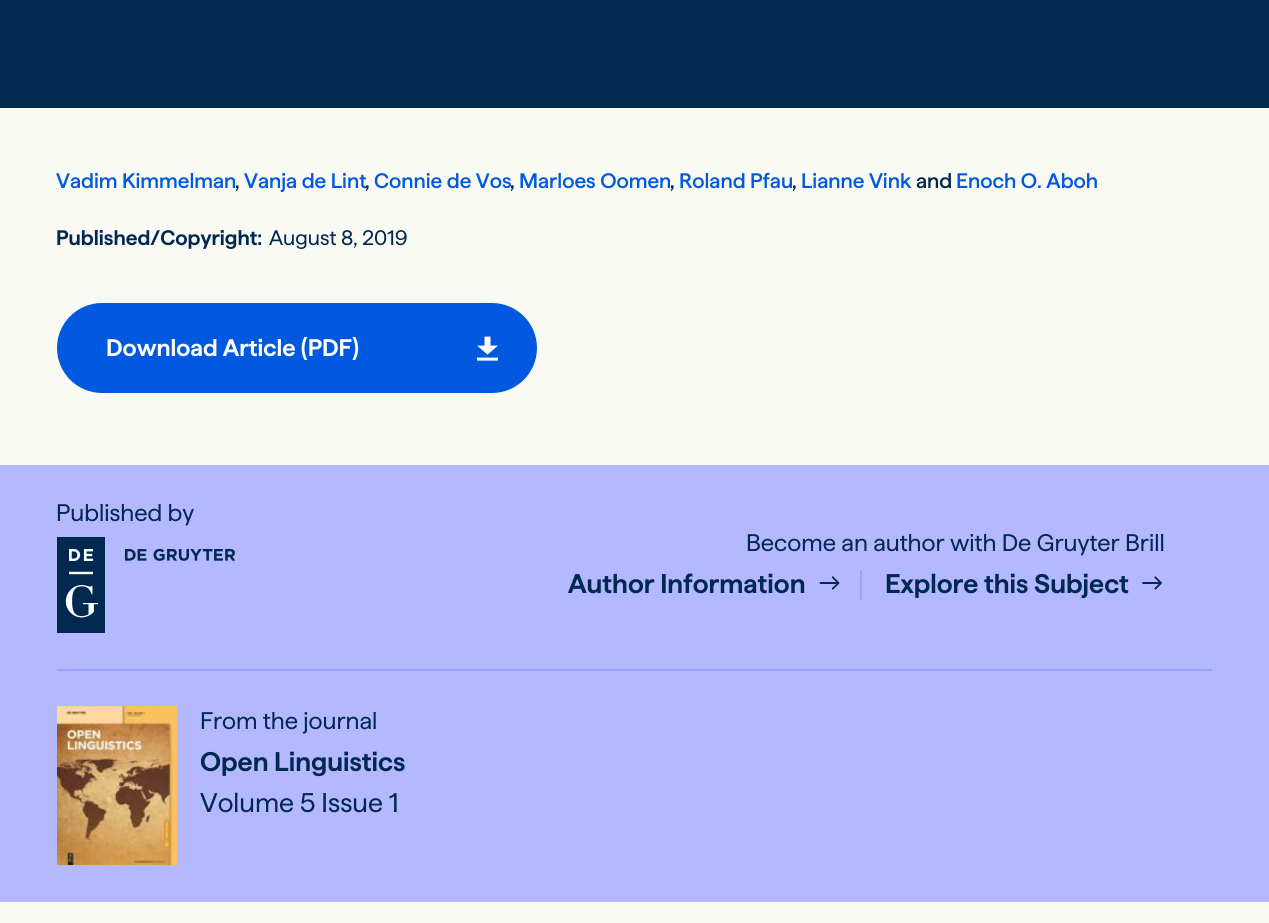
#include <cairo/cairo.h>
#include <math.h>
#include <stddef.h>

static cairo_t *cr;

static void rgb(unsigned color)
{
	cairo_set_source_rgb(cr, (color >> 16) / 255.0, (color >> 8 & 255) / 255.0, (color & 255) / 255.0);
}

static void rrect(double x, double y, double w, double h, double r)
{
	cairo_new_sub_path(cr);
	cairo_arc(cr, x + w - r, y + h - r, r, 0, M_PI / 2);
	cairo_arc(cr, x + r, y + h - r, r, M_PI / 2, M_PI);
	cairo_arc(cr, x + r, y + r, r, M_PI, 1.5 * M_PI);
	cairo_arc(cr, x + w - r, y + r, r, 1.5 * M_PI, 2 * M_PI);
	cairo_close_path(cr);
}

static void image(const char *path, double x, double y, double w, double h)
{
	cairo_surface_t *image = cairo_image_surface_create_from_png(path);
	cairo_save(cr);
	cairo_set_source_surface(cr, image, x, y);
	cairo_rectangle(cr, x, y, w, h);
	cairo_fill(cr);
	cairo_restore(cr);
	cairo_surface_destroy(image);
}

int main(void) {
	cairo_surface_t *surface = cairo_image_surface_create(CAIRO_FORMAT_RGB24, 1269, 923);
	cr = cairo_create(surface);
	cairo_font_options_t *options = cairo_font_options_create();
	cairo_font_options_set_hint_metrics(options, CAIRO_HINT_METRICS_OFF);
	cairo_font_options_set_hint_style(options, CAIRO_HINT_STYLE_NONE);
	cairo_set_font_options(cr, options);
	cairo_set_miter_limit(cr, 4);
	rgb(0xfafaf5);
	cairo_paint(cr);
	rgb(0x002850);
	cairo_rectangle(cr, 0, 0, 1269, 108);
	cairo_fill(cr);
	rgb(0x0059de);
	rrect(58, 304, 478, 88, 44);
	cairo_fill_preserve(cr);
	cairo_stroke(cr);
	image("img/1.png", 477, 336, 21, 25);
	rgb(0xb4b9ff);
	cairo_rectangle(cr, 0, 465, 1269, 437);
	cairo_fill(cr);
	image("img/2.png", 57, 537, 179, 96);
	image("img/3.png", 819, 576, 21, 14);
	rgb(0x99a0ff);
	cairo_rectangle(cr, 860, 570, 2, 30);
	cairo_fill(cr);
	image("img/4.png", 1142, 576, 20, 14);
	cairo_rectangle(cr, 57, 669, 1155, 2);
	cairo_fill(cr);
	image("img/5.png", 57, 706, 120, 159);
	cairo_select_font_face(cr, "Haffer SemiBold", CAIRO_FONT_SLANT_ITALIC, CAIRO_FONT_WEIGHT_NORMAL);
	cairo_set_font_size(cr, 21);
	rgb(0x0059de);
	cairo_move_to(cr, 56, 188);
	cairo_show_text(cr, "Vadim Kimmelman");
	rgb(0x002850);
	cairo_move_to(cr, 235, 188);
	cairo_show_text(cr, ",");
	rgb(0x0059de);
	cairo_move_to(cr, 244, 188);
	cairo_show_text(cr, "Vanja de Lint");
	rgb(0x002850);
	cairo_move_to(cr, 365, 188);
	cairo_show_text(cr, ",");
	rgb(0x0059de);
	cairo_move_to(cr, 374, 188);
	cairo_show_text(cr, "Connie de Vos");
	rgb(0x002850);
	cairo_move_to(cr, 510, 188);
	cairo_show_text(cr, ",");
	rgb(0x0059de);
	cairo_move_to(cr, 519, 188);
	cairo_show_text(cr, "Marloes Oomen");
	rgb(0x002850);
	cairo_move_to(cr, 670, 188);
	cairo_show_text(cr, ",");
	rgb(0x0059de);
	cairo_move_to(cr, 679, 188);
	cairo_show_text(cr, "Roland Pfau");
	rgb(0x002850);
	cairo_move_to(cr, 792, 188);
	cairo_show_text(cr, ",");
	rgb(0x0059de);
	cairo_move_to(cr, 801, 188);
	cairo_show_text(cr, "Lianne Vink");
	rgb(0x002850);
	cairo_move_to(cr, 916, 188);
	cairo_show_text(cr, "and");
	rgb(0x0059de);
	cairo_move_to(cr, 956, 188);
	cairo_show_text(cr, "Enoch O. Aboh");
	cairo_select_font_face(cr, "Haffer", CAIRO_FONT_SLANT_ITALIC, CAIRO_FONT_WEIGHT_BOLD);
	rgb(0x002850);
	cairo_move_to(cr, 56, 245);
	cairo_show_text(cr, "Published/Copyright:");
	cairo_select_font_face(cr, "Haffer", CAIRO_FONT_SLANT_ITALIC, CAIRO_FONT_WEIGHT_NORMAL);
	cairo_move_to(cr, 269, 245);
	cairo_show_text(cr, "August 8, 2019");
	cairo_select_font_face(cr, "Haffer", CAIRO_FONT_SLANT_ITALIC, CAIRO_FONT_WEIGHT_BOLD);
	cairo_set_font_size(cr, 24);
	rgb(0xffffff);
	cairo_move_to(cr, 106, 356);
	cairo_show_text(cr, "Download Article (PDF)");
	cairo_select_font_face(cr, "Haffer", CAIRO_FONT_SLANT_ITALIC, CAIRO_FONT_WEIGHT_NORMAL);
	rgb(0x002850);
	cairo_move_to(cr, 56, 521);
	cairo_show_text(cr, "Published by");
	cairo_move_to(cr, 746, 551);
	cairo_show_text(cr, "Become an author with De Gruyter Brill");
	cairo_select_font_face(cr, "Haffer", CAIRO_FONT_SLANT_ITALIC, CAIRO_FONT_WEIGHT_BOLD);
	cairo_set_font_size(cr, 27);
	cairo_move_to(cr, 568, 593);
	cairo_show_text(cr, "Author Information");
	cairo_move_to(cr, 885, 593);
	cairo_show_text(cr, "Explore this Subject");
	cairo_select_font_face(cr, "Haffer", CAIRO_FONT_SLANT_ITALIC, CAIRO_FONT_WEIGHT_NORMAL);
	cairo_set_font_size(cr, 24);
	cairo_move_to(cr, 200, 729);
	cairo_show_text(cr, "From the journal");
	cairo_select_font_face(cr, "Haffer", CAIRO_FONT_SLANT_ITALIC, CAIRO_FONT_WEIGHT_BOLD);
	cairo_set_font_size(cr, 27);
	cairo_move_to(cr, 200, 771);
	cairo_show_text(cr, "Open Linguistics");
	cairo_select_font_face(cr, "Haffer", CAIRO_FONT_SLANT_ITALIC, CAIRO_FONT_WEIGHT_NORMAL);
	cairo_move_to(cr, 200, 812);
	cairo_show_text(cr, "Volume 5 Issue 1");
	cairo_surface_write_to_png(surface, "page.png");
	cairo_font_options_destroy(options);
	cairo_destroy(cr);
	cairo_surface_destroy(surface);
	return 0;
}
